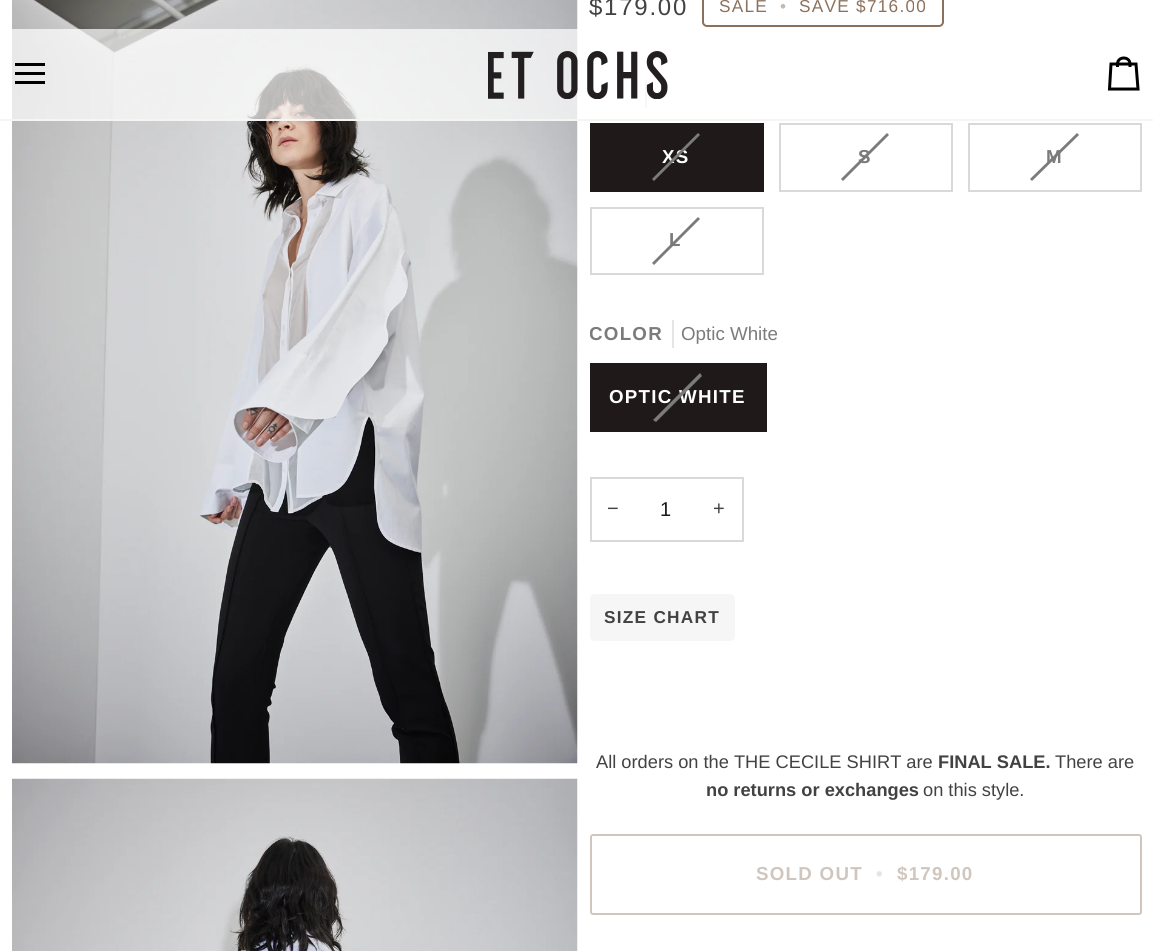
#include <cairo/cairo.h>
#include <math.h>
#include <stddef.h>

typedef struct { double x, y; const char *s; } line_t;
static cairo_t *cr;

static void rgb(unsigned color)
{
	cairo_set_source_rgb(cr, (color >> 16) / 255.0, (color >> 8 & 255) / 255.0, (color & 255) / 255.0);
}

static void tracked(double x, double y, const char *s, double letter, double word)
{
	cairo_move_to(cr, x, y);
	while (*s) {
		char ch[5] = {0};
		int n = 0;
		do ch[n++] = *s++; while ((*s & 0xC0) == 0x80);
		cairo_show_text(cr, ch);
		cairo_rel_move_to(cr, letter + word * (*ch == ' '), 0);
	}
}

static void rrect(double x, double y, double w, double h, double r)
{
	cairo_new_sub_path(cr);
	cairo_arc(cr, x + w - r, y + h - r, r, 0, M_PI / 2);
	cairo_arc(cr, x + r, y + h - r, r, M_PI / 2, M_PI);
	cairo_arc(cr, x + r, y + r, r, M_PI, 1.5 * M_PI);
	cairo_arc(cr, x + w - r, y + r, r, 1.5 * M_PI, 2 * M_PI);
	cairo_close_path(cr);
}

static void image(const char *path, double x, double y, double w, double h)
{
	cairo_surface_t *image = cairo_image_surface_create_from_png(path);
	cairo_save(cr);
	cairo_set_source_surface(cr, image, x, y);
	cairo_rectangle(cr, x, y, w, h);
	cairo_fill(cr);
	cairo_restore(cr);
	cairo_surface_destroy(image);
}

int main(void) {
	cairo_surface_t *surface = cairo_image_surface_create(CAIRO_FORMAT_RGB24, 1153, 951);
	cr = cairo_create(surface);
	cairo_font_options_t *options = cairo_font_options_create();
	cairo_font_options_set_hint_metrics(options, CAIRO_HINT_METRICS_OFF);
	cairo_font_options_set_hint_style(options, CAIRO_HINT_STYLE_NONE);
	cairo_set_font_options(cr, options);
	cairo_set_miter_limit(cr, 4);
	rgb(0xffffff);
	cairo_paint(cr);
	image("img/1.png", 12, 0, 566, 764);
	image("img/2.png", 12, 778, 566, 173);
	rrect(703, -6, 240, 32, 4);
	rgb(0x8b715c);
	cairo_stroke(cr);
	rgb(0xe5e5e5);
	cairo_rectangle(cr, 645, 80, 2, 28);
	cairo_fill(cr);
	rgb(0x1f1919);
	cairo_rectangle(cr, 590, 123, 174, 69);
	cairo_fill(cr);
	cairo_rectangle(cr, 780, 124, 172, 67);
	rgb(0xd9d9d9);
	cairo_stroke(cr);
	rgb(0x7b7b7b);
	cairo_new_path(cr);
	cairo_move_to(cr, 887, 133);
	cairo_line_to(cr, 889, 135);
	cairo_line_to(cr, 843, 181);
	cairo_line_to(cr, 841, 179);
	cairo_close_path(cr);
	cairo_fill(cr);
	cairo_rectangle(cr, 969, 124, 172, 67);
	rgb(0xd9d9d9);
	cairo_stroke(cr);
	rgb(0x7b7b7b);
	cairo_new_path(cr);
	cairo_move_to(cr, 1077, 133);
	cairo_line_to(cr, 1079, 135);
	cairo_line_to(cr, 1032, 181);
	cairo_line_to(cr, 1030, 179);
	cairo_close_path(cr);
	cairo_fill(cr);
	cairo_rectangle(cr, 591, 208, 172, 66);
	rgb(0xd9d9d9);
	cairo_stroke(cr);
	rgb(0x7b7b7b);
	cairo_new_path(cr);
	cairo_move_to(cr, 698, 217);
	cairo_line_to(cr, 700, 219);
	cairo_line_to(cr, 654, 265);
	cairo_line_to(cr, 652, 263);
	cairo_close_path(cr);
	cairo_fill(cr);
	rgb(0xe5e5e5);
	cairo_rectangle(cr, 672, 320, 2, 28);
	cairo_fill(cr);
	rgb(0x1f1919);
	cairo_rectangle(cr, 590, 363, 177, 69);
	cairo_fill(cr);
	cairo_rectangle(cr, 591, 478, 152, 63);
	rgb(0xd9d9d9);
	cairo_stroke(cr);
	rgb(0xf6f6f6);
	rrect(590, 594, 145, 47, 5);
	cairo_fill(cr);
	rrect(591, 835, 550, 79, 2);
	rgb(0xd1c6be);
	cairo_stroke(cr);
	rgb(0xf7f5f4);
	cairo_rectangle(cr, 0, 119, 1153, 2);
	cairo_fill(cr);
	cairo_set_source_rgba(cr, 1, 1, 1, 0.7);
	cairo_rectangle(cr, 12, 29, 635, 90);
	cairo_fill(cr);
	cairo_new_path(cr);
	cairo_move_to(cr, 43.5, 64.5);
	cairo_line_to(cr, 16.5, 64.5);
	cairo_move_to(cr, 43.5, 73.5);
	cairo_line_to(cr, 16.5, 73.5);
	cairo_move_to(cr, 43.5, 82.5);
	cairo_line_to(cr, 16.5, 82.5);
	rgb(0x000000);
	cairo_set_line_width(cr, 3);
	cairo_set_line_cap(cr, CAIRO_LINE_CAP_SQUARE);
	cairo_stroke(cr);
	image("img/3.png", 488, 51, 180, 48);
	cairo_new_path(cr);
	cairo_move_to(cr, 1130, 67);
	cairo_line_to(cr, 1130, 64);
	cairo_line_to(cr, 1136, 64);
	cairo_line_to(cr, 1138, 89);
	cairo_line_to(cr, 1109.5, 89);
	cairo_line_to(cr, 1111, 64);
	cairo_line_to(cr, 1117.5, 64);
	cairo_curve_to(cr, 1117.5, 56, 1130, 56, 1130, 64);
	cairo_line_to(cr, 1117.5, 64);
	cairo_line_to(cr, 1117.5, 67);
	cairo_set_line_cap(cr, CAIRO_LINE_CAP_BUTT);
	cairo_stroke(cr);
	cairo_select_font_face(cr, "Liberation Sans", CAIRO_FONT_SLANT_NORMAL, CAIRO_FONT_WEIGHT_NORMAL);
	cairo_set_font_size(cr, 24);
	rgb(0x424242);
	tracked(589, 15, "$179.00", 1.75, 0);
	cairo_set_font_size(cr, 17.25);
	rgb(0x8b715c);
	tracked(719, 12, "SALE", 1.25, 0);
	rgb(0xc5b8ae);
	tracked(780, 12, "•", 1.25, 0);
	rgb(0x8b715c);
	tracked(799, 12, "SAVE $716.00", 1.25, 0);
	cairo_select_font_face(cr, "Liberation Sans", CAIRO_FONT_SLANT_NORMAL, CAIRO_FONT_WEIGHT_BOLD);
	cairo_set_font_size(cr, 18.75);
	rgb(0xffffff);
	tracked(662, 163, "XS", 1.25, 0);
	rgb(0x7b7b7b);
	cairo_new_path(cr);
	cairo_move_to(cr, 698, 133);
	cairo_line_to(cr, 700, 135);
	cairo_line_to(cr, 654, 181);
	cairo_line_to(cr, 652, 179);
	cairo_close_path(cr);
	cairo_fill(cr);
	{
		static const line_t items[] = {
			{858, 163, "S"},
			{1046, 163, "M"},
			{669, 246, "L"},
		};
		for (size_t i = 0; i < sizeof items / sizeof *items; i++) {
			tracked(items[i].x, items[i].y, items[i].s, 1.25, 0);
		}
	}
	cairo_save(cr);
	cairo_rectangle(cr, 590, 320, 73, 28);
	cairo_clip(cr);
	tracked(589, 340, "COLOR", 1.25, 0);
	cairo_restore(cr);
	cairo_select_font_face(cr, "Liberation Sans", CAIRO_FONT_SLANT_NORMAL, CAIRO_FONT_WEIGHT_NORMAL);
	cairo_move_to(cr, 681, 340);
	cairo_show_text(cr, "Optic White");
	cairo_select_font_face(cr, "Liberation Sans", CAIRO_FONT_SLANT_NORMAL, CAIRO_FONT_WEIGHT_BOLD);
	rgb(0xffffff);
	tracked(609, 403, "OPTIC WHITE", 1.25, 0);
	rgb(0x7b7b7b);
	cairo_new_path(cr);
	cairo_move_to(cr, 700, 373);
	cairo_line_to(cr, 702, 376);
	cairo_line_to(cr, 656, 422);
	cairo_line_to(cr, 653, 420);
	cairo_close_path(cr);
	cairo_fill(cr);
	cairo_select_font_face(cr, "Liberation Sans", CAIRO_FONT_SLANT_NORMAL, CAIRO_FONT_WEIGHT_NORMAL);
	cairo_set_font_size(cr, 20);
	rgb(0x424242);
	cairo_move_to(cr, 607, 515);
	cairo_show_text(cr, "−");
	rgb(0x1f1919);
	cairo_move_to(cr, 660, 516);
	cairo_show_text(cr, "1");
	rgb(0x424242);
	cairo_move_to(cr, 713, 515);
	cairo_show_text(cr, "+");
	cairo_select_font_face(cr, "Liberation Sans", CAIRO_FONT_SLANT_NORMAL, CAIRO_FONT_WEIGHT_BOLD);
	cairo_set_font_size(cr, 17.25);
	tracked(604, 623, "SIZE CHART", 1.25, 0);
	cairo_select_font_face(cr, "Liberation Sans", CAIRO_FONT_SLANT_NORMAL, CAIRO_FONT_WEIGHT_NORMAL);
	cairo_set_font_size(cr, 18.25);
	cairo_move_to(cr, 596, 768);
	cairo_show_text(cr, "All orders on the THE CECILE SHIRT are");
	cairo_select_font_face(cr, "Liberation Sans", CAIRO_FONT_SLANT_NORMAL, CAIRO_FONT_WEIGHT_BOLD);
	cairo_move_to(cr, 938, 768);
	cairo_show_text(cr, "FINAL SALE.");
	cairo_select_font_face(cr, "Liberation Sans", CAIRO_FONT_SLANT_NORMAL, CAIRO_FONT_WEIGHT_NORMAL);
	cairo_move_to(cr, 1055, 768);
	cairo_show_text(cr, "There are");
	cairo_select_font_face(cr, "Liberation Sans", CAIRO_FONT_SLANT_NORMAL, CAIRO_FONT_WEIGHT_BOLD);
	cairo_move_to(cr, 706, 796);
	cairo_show_text(cr, "no returns or exchanges");
	cairo_select_font_face(cr, "Liberation Sans", CAIRO_FONT_SLANT_NORMAL, CAIRO_FONT_WEIGHT_NORMAL);
	cairo_move_to(cr, 923, 796);
	cairo_show_text(cr, "on this style.");
	cairo_select_font_face(cr, "Liberation Sans", CAIRO_FONT_SLANT_NORMAL, CAIRO_FONT_WEIGHT_BOLD);
	cairo_set_font_size(cr, 18.75);
	rgb(0xd1c6be);
	tracked(756, 880, "SOLD OUT", 1.25, 0);
	rgb(0xe8e3de);
	tracked(876, 880, "•", 1.25, 0);
	rgb(0xd1c6be);
	tracked(897, 880, "$179.00", 1.25, 0);
	cairo_surface_write_to_png(surface, "page.png");
	cairo_font_options_destroy(options);
	cairo_destroy(cr);
	cairo_surface_destroy(surface);
	return 0;
}
